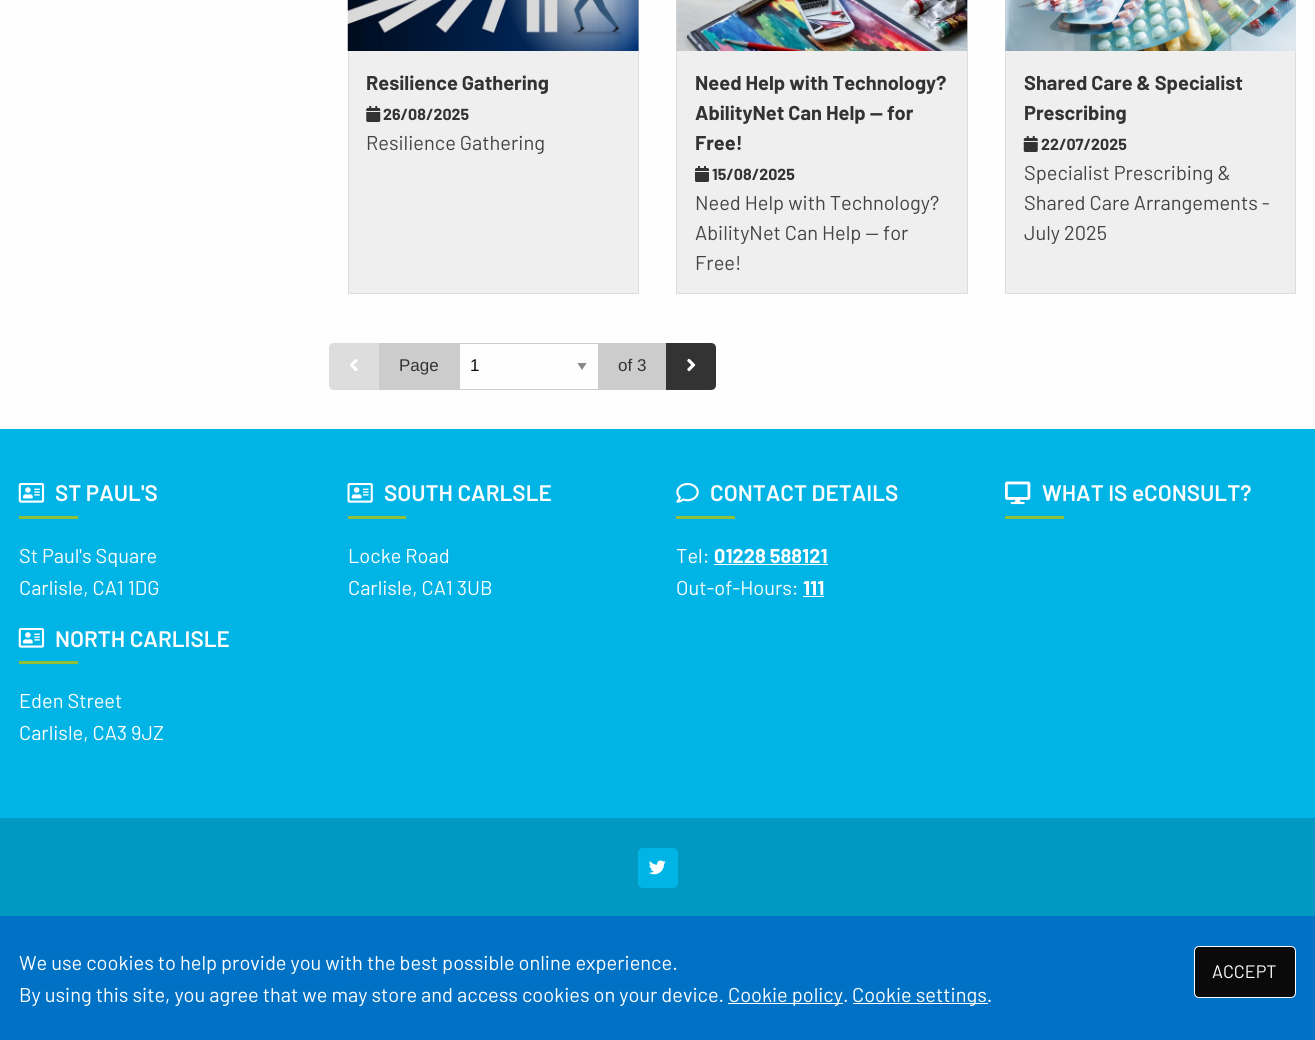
#include <cairo/cairo.h>
#include <math.h>
#include <stddef.h>

typedef struct { double x, y; const char *s; } line_t;
typedef struct { double x, y, w, h; unsigned color; } box_t;
static cairo_t *cr;

static void rgb(unsigned color)
{
	cairo_set_source_rgb(cr, (color >> 16) / 255.0, (color >> 8 & 255) / 255.0, (color & 255) / 255.0);
}

static void rrect(double x, double y, double w, double h, double r)
{
	cairo_new_sub_path(cr);
	cairo_arc(cr, x + w - r, y + h - r, r, 0, M_PI / 2);
	cairo_arc(cr, x + r, y + h - r, r, M_PI / 2, M_PI);
	cairo_arc(cr, x + r, y + r, r, M_PI, 1.5 * M_PI);
	cairo_arc(cr, x + w - r, y + r, r, 1.5 * M_PI, 2 * M_PI);
	cairo_close_path(cr);
}

static void image(const char *path, double x, double y, double w, double h)
{
	cairo_surface_t *image = cairo_image_surface_create_from_png(path);
	cairo_save(cr);
	cairo_set_source_surface(cr, image, x, y);
	cairo_rectangle(cr, x, y, w, h);
	cairo_fill(cr);
	cairo_restore(cr);
	cairo_surface_destroy(image);
}

int main(void) {
	cairo_surface_t *surface = cairo_image_surface_create(CAIRO_FORMAT_RGB24, 1315, 1040);
	cr = cairo_create(surface);
	cairo_font_options_t *options = cairo_font_options_create();
	cairo_font_options_set_hint_metrics(options, CAIRO_HINT_METRICS_OFF);
	cairo_font_options_set_hint_style(options, CAIRO_HINT_STYLE_NONE);
	cairo_set_font_options(cr, options);
	cairo_set_miter_limit(cr, 4);
	rgb(0x0198c2);
	cairo_paint(cr);
	rgb(0xfefefe);
	cairo_rectangle(cr, 0, 0, 1315, 429);
	cairo_fill(cr);
	rgb(0xefefef);
	cairo_rectangle(cr, 349, 51, 289, 242);
	cairo_fill(cr);
	cairo_rectangle(cr, 348.5, -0.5, 290, 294);
	rgb(0xdddddd);
	cairo_set_line_width(cr, 1);
	cairo_stroke(cr);
	image("img/1.png", 347, 0, 292, 51);
	image("img/2.png", 366, 106, 15, 16);
	rgb(0xefefef);
	cairo_rectangle(cr, 677, 51, 290, 242);
	cairo_fill(cr);
	cairo_rectangle(cr, 676.5, -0.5, 291, 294);
	rgb(0xdddddd);
	cairo_stroke(cr);
	image("img/3.png", 676, 0, 292, 51);
	image("img/4.png", 695, 166, 14, 16);
	rgb(0xefefef);
	cairo_rectangle(cr, 1006, 51, 289, 242);
	cairo_fill(cr);
	cairo_rectangle(cr, 1005.5, -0.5, 290, 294);
	rgb(0xdddddd);
	cairo_stroke(cr);
	image("img/5.png", 1005, 0, 292, 51);
	image("img/6.png", 1023, 136, 15, 16);
	cairo_new_path(cr);
	cairo_move_to(cr, 334, 343);
	cairo_line_to(cr, 379, 343);
	cairo_line_to(cr, 379, 390);
	cairo_line_to(cr, 334, 390);
	cairo_curve_to(cr, 331, 390, 329, 388, 329, 385);
	cairo_line_to(cr, 329, 348);
	cairo_curve_to(cr, 329, 345, 331, 343, 334, 343);
	cairo_close_path(cr);
	cairo_fill(cr);
	image("img/7.png", 350, 359, 8, 12);
	rgb(0xcccccc);
	cairo_rectangle(cr, 379, 343, 80, 47);
	cairo_fill(cr);
	cairo_save(cr);
	cairo_rectangle(cr, 576, 363, 12, 7);
	cairo_clip(cr);
	rgb(0x8a8a8a);
	cairo_new_path(cr);
	cairo_move_to(cr, 577, 362.5);
	cairo_line_to(cr, 587, 362.5);
	cairo_line_to(cr, 582, 370);
	cairo_close_path(cr);
	cairo_fill(cr);
	cairo_restore(cr);
	cairo_rectangle(cr, 459.5, 343.5, 139, 46);
	cairo_stroke(cr);
	cairo_rectangle(cr, 599, 343, 67, 47);
	cairo_fill(cr);
	rgb(0x333333);
	cairo_new_path(cr);
	cairo_move_to(cr, 666, 343);
	cairo_line_to(cr, 711, 343);
	cairo_curve_to(cr, 714, 343, 716, 345, 716, 348);
	cairo_line_to(cr, 716, 385);
	cairo_curve_to(cr, 716, 388, 714, 390, 711, 390);
	cairo_line_to(cr, 666, 390);
	cairo_close_path(cr);
	cairo_fill(cr);
	image("img/8.png", 687, 358, 9, 14);
	rgb(0x01b4e6);
	cairo_rectangle(cr, 0, 429, 1315, 389);
	cairo_fill(cr);
	image("img/9.png", 18, 483, 27, 20);
	rgb(0x91bf37);
	cairo_rectangle(cr, 19, 516, 59, 3);
	cairo_fill(cr);
	image("img/9.png", 18, 628, 27, 20);
	cairo_rectangle(cr, 19, 661, 59, 3);
	cairo_fill(cr);
	image("img/10.png", 347, 483, 26, 20);
	cairo_rectangle(cr, 348, 516, 58, 3);
	cairo_fill(cr);
	image("img/11.png", 676, 483, 23, 20);
	{
		static const box_t items[] = {
			{676, 516, 59, 3, 0x91bf37},
			{714, 564, 114, 1, 0xfefefe},
			{803, 596, 21, 1, 0xfefefe},
		};
		for (size_t i = 0; i < sizeof items / sizeof *items; i++) {
			rgb(items[i].color);
			cairo_rectangle(cr, items[i].x, items[i].y, items[i].w, items[i].h);
			cairo_fill(cr);
		}
	}
	image("img/12.png", 1005, 481, 26, 24);
	rgb(0x91bf37);
	cairo_rectangle(cr, 1005, 516, 59, 3);
	cairo_fill(cr);
	rgb(0x01b4e6);
	rrect(638, 848, 40, 40, 5);
	cairo_fill(cr);
	image("img/13.png", 649, 860, 17, 15);
	{
		static const box_t items[] = {
			{0, 916, 1315, 124, 0x0072c6},
			{728, 1003, 115, 1, 0xfefefe},
			{853, 1003, 135, 1, 0xfefefe},
		};
		for (size_t i = 0; i < sizeof items / sizeof *items; i++) {
			rgb(items[i].color);
			cairo_rectangle(cr, items[i].x, items[i].y, items[i].w, items[i].h);
			cairo_fill(cr);
		}
	}
	rgb(0x0a0a0a);
	rrect(1194.5, 946.5, 101, 51, 4.5);
	cairo_fill_preserve(cr);
	rgb(0xfefefe);
	cairo_stroke(cr);
	cairo_select_font_face(cr, "Barlow", CAIRO_FONT_SLANT_NORMAL, CAIRO_FONT_WEIGHT_BOLD);
	cairo_set_font_size(cr, 20);
	rgb(0x333333);
	cairo_move_to(cr, 366, 90);
	cairo_show_text(cr, "Resilience Gathering");
	cairo_set_font_size(cr, 16);
	cairo_move_to(cr, 383, 120);
	cairo_show_text(cr, "26/08/2025");
	cairo_select_font_face(cr, "Barlow", CAIRO_FONT_SLANT_NORMAL, CAIRO_FONT_WEIGHT_NORMAL);
	cairo_set_font_size(cr, 20);
	rgb(0x444444);
	cairo_move_to(cr, 366, 150);
	cairo_show_text(cr, "Resilience Gathering");
	cairo_select_font_face(cr, "Barlow", CAIRO_FONT_SLANT_NORMAL, CAIRO_FONT_WEIGHT_BOLD);
	rgb(0x333333);
	{
		static const line_t items[] = {
			{695, 90, "Need Help with Technology?"},
			{695, 120, "AbilityNet Can Help — for"},
			{695, 150, "Free!"},
		};
		for (size_t i = 0; i < sizeof items / sizeof *items; i++) {
			cairo_move_to(cr, items[i].x, items[i].y);
			cairo_show_text(cr, items[i].s);
		}
	}
	cairo_set_font_size(cr, 16);
	cairo_move_to(cr, 712, 180);
	cairo_show_text(cr, "15/08/2025");
	cairo_select_font_face(cr, "Barlow", CAIRO_FONT_SLANT_NORMAL, CAIRO_FONT_WEIGHT_NORMAL);
	cairo_set_font_size(cr, 20);
	rgb(0x444444);
	{
		static const line_t items[] = {
			{695, 210, "Need Help with Technology?"},
			{695, 240, "AbilityNet Can Help — for"},
			{695, 270, "Free!"},
		};
		for (size_t i = 0; i < sizeof items / sizeof *items; i++) {
			cairo_move_to(cr, items[i].x, items[i].y);
			cairo_show_text(cr, items[i].s);
		}
	}
	cairo_select_font_face(cr, "Barlow", CAIRO_FONT_SLANT_NORMAL, CAIRO_FONT_WEIGHT_BOLD);
	rgb(0x333333);
	cairo_move_to(cr, 1024, 90);
	cairo_show_text(cr, "Shared Care & Specialist");
	cairo_move_to(cr, 1024, 120);
	cairo_show_text(cr, "Prescribing");
	cairo_set_font_size(cr, 16);
	cairo_move_to(cr, 1041, 150);
	cairo_show_text(cr, "22/07/2025");
	cairo_select_font_face(cr, "Barlow", CAIRO_FONT_SLANT_NORMAL, CAIRO_FONT_WEIGHT_NORMAL);
	cairo_set_font_size(cr, 20);
	rgb(0x444444);
	{
		static const line_t items[] = {
			{1024, 180, "Specialist Prescribing &"},
			{1024, 210, "Shared Care Arrangements -"},
			{1024, 240, "July 2025"},
		};
		for (size_t i = 0; i < sizeof items / sizeof *items; i++) {
			cairo_move_to(cr, items[i].x, items[i].y);
			cairo_show_text(cr, items[i].s);
		}
	}
	cairo_select_font_face(cr, "Liberation Sans", CAIRO_FONT_SLANT_NORMAL, CAIRO_FONT_WEIGHT_NORMAL);
	cairo_set_font_size(cr, 17);
	rgb(0x333333);
	cairo_move_to(cr, 399, 371);
	cairo_show_text(cr, "Page");
	rgb(0x0a0a0a);
	cairo_move_to(cr, 470, 371);
	cairo_show_text(cr, "1");
	rgb(0x333333);
	cairo_move_to(cr, 618, 371);
	cairo_show_text(cr, "of 3");
	cairo_select_font_face(cr, "Barlow SemiBold", CAIRO_FONT_SLANT_NORMAL, CAIRO_FONT_WEIGHT_NORMAL);
	cairo_set_font_size(cr, 22.5);
	rgb(0xfefefe);
	cairo_move_to(cr, 55, 501);
	cairo_show_text(cr, "ST PAUL'S");
	cairo_select_font_face(cr, "Barlow", CAIRO_FONT_SLANT_NORMAL, CAIRO_FONT_WEIGHT_NORMAL);
	cairo_set_font_size(cr, 20);
	cairo_move_to(cr, 19, 563);
	cairo_show_text(cr, "St Paul's Square");
	cairo_move_to(cr, 19, 595);
	cairo_show_text(cr, "Carlisle, CA1 1DG");
	cairo_select_font_face(cr, "Barlow SemiBold", CAIRO_FONT_SLANT_NORMAL, CAIRO_FONT_WEIGHT_NORMAL);
	cairo_set_font_size(cr, 22.5);
	cairo_move_to(cr, 55, 647);
	cairo_show_text(cr, "NORTH CARLISLE");
	cairo_select_font_face(cr, "Barlow", CAIRO_FONT_SLANT_NORMAL, CAIRO_FONT_WEIGHT_NORMAL);
	cairo_set_font_size(cr, 20);
	cairo_move_to(cr, 19, 708);
	cairo_show_text(cr, "Eden Street");
	cairo_move_to(cr, 19, 740);
	cairo_show_text(cr, "Carlisle, CA3 9JZ");
	cairo_select_font_face(cr, "Barlow SemiBold", CAIRO_FONT_SLANT_NORMAL, CAIRO_FONT_WEIGHT_NORMAL);
	cairo_set_font_size(cr, 22.5);
	cairo_move_to(cr, 384, 501);
	cairo_show_text(cr, "SOUTH CARLSLE");
	cairo_select_font_face(cr, "Barlow", CAIRO_FONT_SLANT_NORMAL, CAIRO_FONT_WEIGHT_NORMAL);
	cairo_set_font_size(cr, 20);
	cairo_move_to(cr, 348, 563);
	cairo_show_text(cr, "Locke Road");
	cairo_move_to(cr, 348, 595);
	cairo_show_text(cr, "Carlisle, CA1 3UB");
	cairo_select_font_face(cr, "Barlow SemiBold", CAIRO_FONT_SLANT_NORMAL, CAIRO_FONT_WEIGHT_NORMAL);
	cairo_set_font_size(cr, 22.5);
	cairo_move_to(cr, 710, 501);
	cairo_show_text(cr, "CONTACT DETAILS");
	cairo_select_font_face(cr, "Barlow", CAIRO_FONT_SLANT_NORMAL, CAIRO_FONT_WEIGHT_NORMAL);
	cairo_set_font_size(cr, 20);
	cairo_move_to(cr, 676, 563);
	cairo_show_text(cr, "Tel:");
	cairo_select_font_face(cr, "Barlow", CAIRO_FONT_SLANT_NORMAL, CAIRO_FONT_WEIGHT_BOLD);
	cairo_move_to(cr, 714, 563);
	cairo_show_text(cr, "01228 588121");
	cairo_select_font_face(cr, "Barlow", CAIRO_FONT_SLANT_NORMAL, CAIRO_FONT_WEIGHT_NORMAL);
	cairo_move_to(cr, 676, 595);
	cairo_show_text(cr, "Out-of-Hours:");
	cairo_select_font_face(cr, "Barlow", CAIRO_FONT_SLANT_NORMAL, CAIRO_FONT_WEIGHT_BOLD);
	cairo_move_to(cr, 803, 595);
	cairo_show_text(cr, "111");
	cairo_select_font_face(cr, "Barlow SemiBold", CAIRO_FONT_SLANT_NORMAL, CAIRO_FONT_WEIGHT_NORMAL);
	cairo_set_font_size(cr, 22.5);
	cairo_move_to(cr, 1042, 501);
	cairo_show_text(cr, "WHAT IS eCONSULT?");
	cairo_select_font_face(cr, "Barlow", CAIRO_FONT_SLANT_NORMAL, CAIRO_FONT_WEIGHT_NORMAL);
	cairo_set_font_size(cr, 20);
	{
		static const line_t items[] = {
			{19, 970, "We use cookies to help provide you with the best possible online experience."},
			{19, 1002, "By using this site, you agree that we may store and access cookies on your device."},
			{728, 1002, "Cookie policy."},
			{852, 1002, "Cookie settings."},
		};
		for (size_t i = 0; i < sizeof items / sizeof *items; i++) {
			cairo_move_to(cr, items[i].x, items[i].y);
			cairo_show_text(cr, items[i].s);
		}
	}
	cairo_set_font_size(cr, 18);
	cairo_move_to(cr, 1212, 978);
	cairo_show_text(cr, "ACCEPT");
	cairo_surface_write_to_png(surface, "page.png");
	cairo_font_options_destroy(options);
	cairo_destroy(cr);
	cairo_surface_destroy(surface);
	return 0;
}
